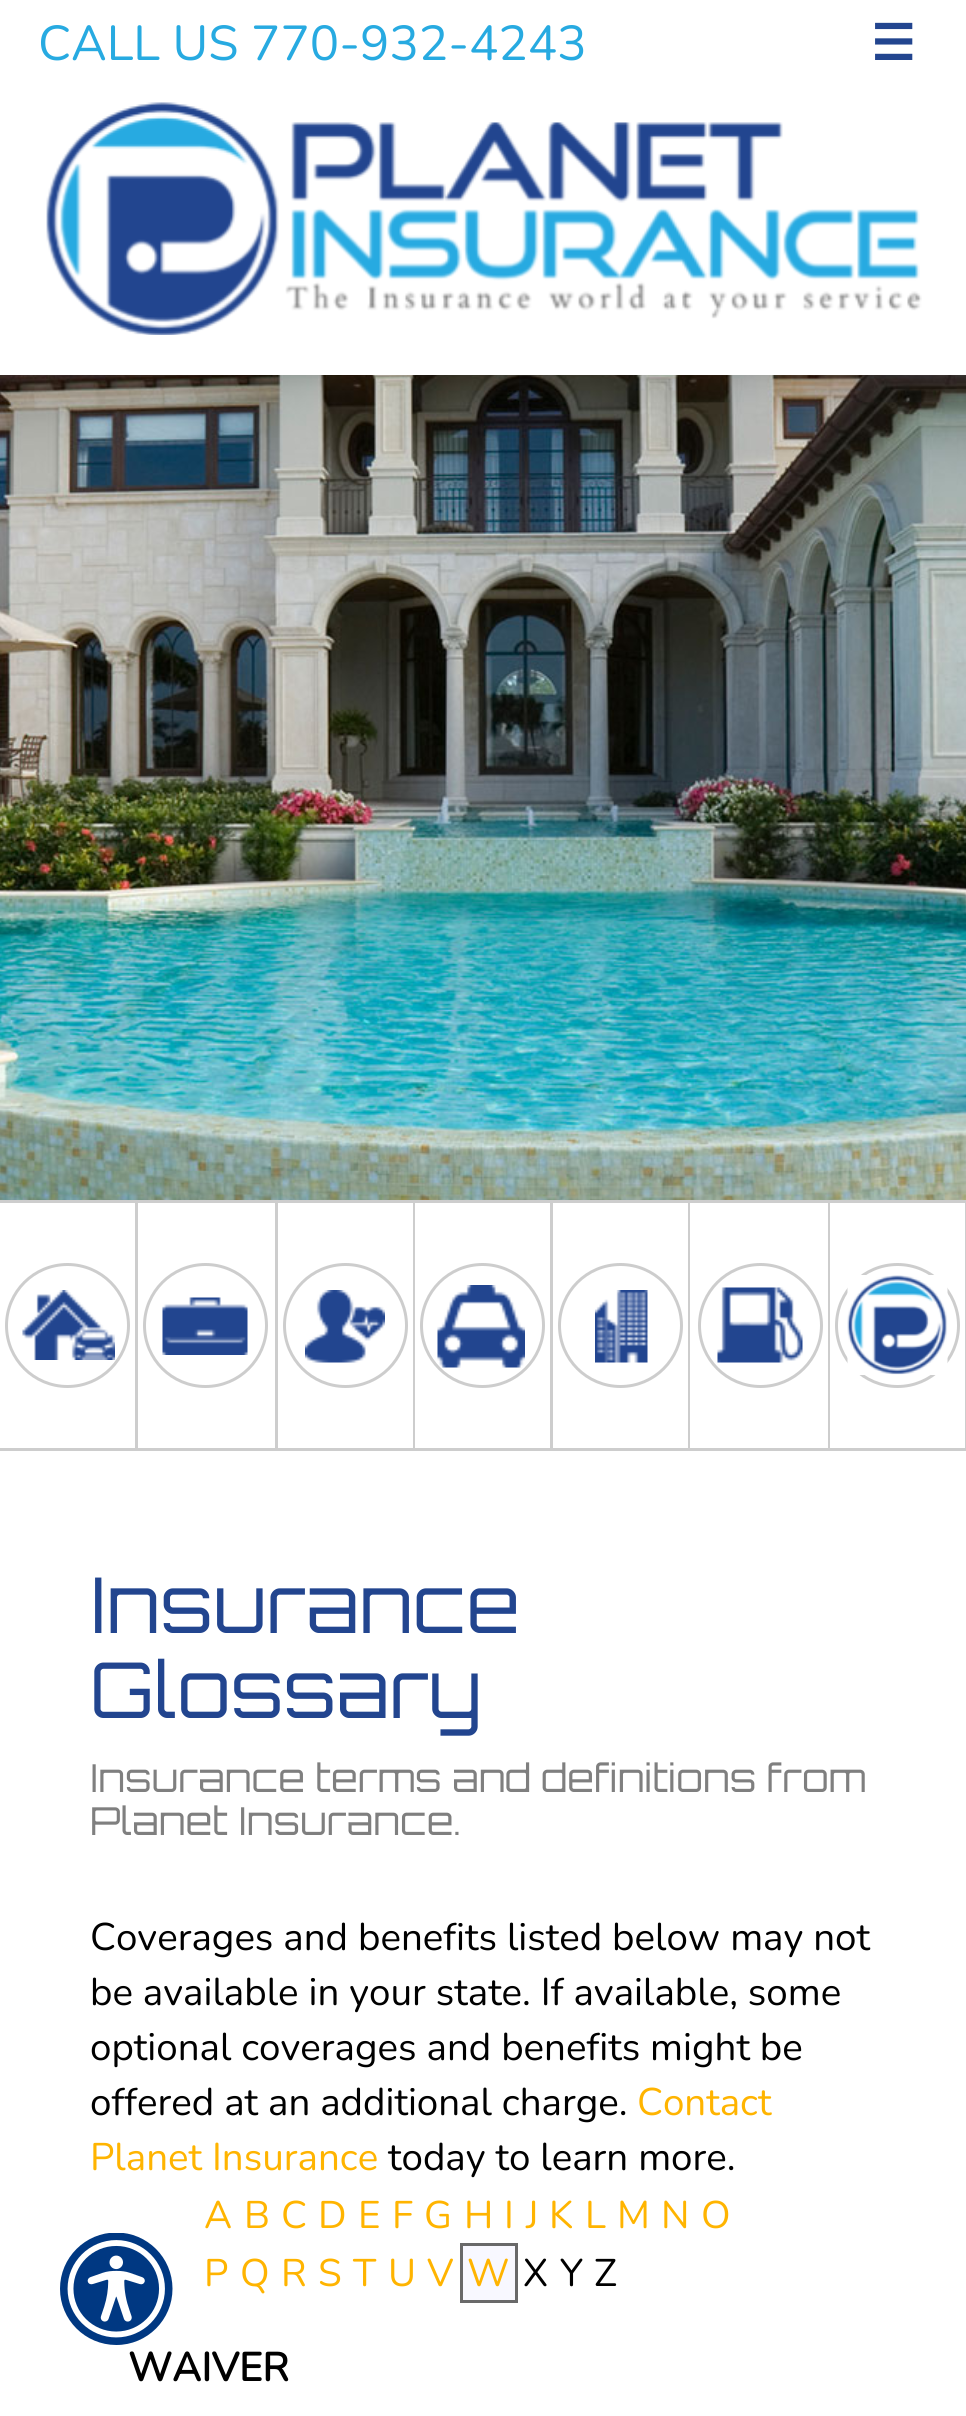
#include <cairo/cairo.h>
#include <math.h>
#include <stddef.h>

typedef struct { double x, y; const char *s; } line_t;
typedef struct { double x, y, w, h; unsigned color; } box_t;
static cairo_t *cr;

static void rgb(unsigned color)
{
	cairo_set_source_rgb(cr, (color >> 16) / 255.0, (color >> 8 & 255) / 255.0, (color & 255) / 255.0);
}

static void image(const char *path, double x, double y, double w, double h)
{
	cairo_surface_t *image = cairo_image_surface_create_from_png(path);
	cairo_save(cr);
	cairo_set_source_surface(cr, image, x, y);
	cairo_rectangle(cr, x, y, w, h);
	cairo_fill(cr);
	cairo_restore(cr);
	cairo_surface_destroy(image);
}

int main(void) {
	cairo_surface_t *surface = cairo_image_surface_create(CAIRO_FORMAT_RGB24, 966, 2416);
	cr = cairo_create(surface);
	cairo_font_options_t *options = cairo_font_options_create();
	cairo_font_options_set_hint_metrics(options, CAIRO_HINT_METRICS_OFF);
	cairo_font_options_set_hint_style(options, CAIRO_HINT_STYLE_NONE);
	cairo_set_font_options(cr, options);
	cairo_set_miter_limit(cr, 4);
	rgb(0xffffff);
	cairo_paint(cr);
	image("img/1.png", 46, 102, 876, 233);
	image("img/2.png", 0, 375, 966, 825);
	{
		static const box_t items[] = {
			{0, 1200, 966, 3, 0xcdcdcd},
			{135, 1200, 3, 250, 0xcdcdcd},
			{0, 1448, 138, 3, 0xcdcdcd},
		};
		for (size_t i = 0; i < sizeof items / sizeof *items; i++) {
			rgb(items[i].color);
			cairo_rectangle(cr, items[i].x, items[i].y, items[i].w, items[i].h);
			cairo_fill(cr);
		}
	}
	cairo_arc(cr, 67.5, 1325.5, 61, 0, 2 * M_PI);
	cairo_set_line_width(cr, 3);
	cairo_stroke(cr);
	image("img/3.png", 22, 1290, 93, 70);
	cairo_rectangle(cr, 275, 1200, 3, 250);
	cairo_fill(cr);
	cairo_rectangle(cr, 138, 1448, 140, 3);
	cairo_fill(cr);
	cairo_arc(cr, 205.5, 1325.5, 61, 0, 2 * M_PI);
	cairo_stroke(cr);
	image("img/4.png", 162, 1297, 86, 58);
	cairo_rectangle(cr, 413, 1200, 2, 250);
	cairo_fill(cr);
	cairo_rectangle(cr, 278, 1448, 137, 3);
	cairo_fill(cr);
	cairo_arc(cr, 345.5, 1325.5, 61, 0, 2 * M_PI);
	cairo_stroke(cr);
	image("img/5.png", 305, 1290, 80, 73);
	cairo_rectangle(cr, 550, 1200, 3, 250);
	cairo_fill(cr);
	cairo_rectangle(cr, 415, 1448, 138, 3);
	cairo_fill(cr);
	cairo_arc(cr, 482.5, 1325.5, 61, 0, 2 * M_PI);
	cairo_stroke(cr);
	image("img/6.png", 437, 1285, 88, 83);
	cairo_rectangle(cr, 688, 1200, 2, 250);
	cairo_fill(cr);
	cairo_rectangle(cr, 553, 1448, 137, 3);
	cairo_fill(cr);
	cairo_arc(cr, 620.5, 1325.5, 61, 0, 2 * M_PI);
	cairo_stroke(cr);
	image("img/7.png", 595, 1290, 53, 73);
	cairo_rectangle(cr, 828, 1200, 2, 250);
	cairo_fill(cr);
	cairo_rectangle(cr, 690, 1448, 140, 3);
	cairo_fill(cr);
	cairo_arc(cr, 760.5, 1325.5, 61, 0, 2 * M_PI);
	cairo_stroke(cr);
	image("img/8.png", 717, 1287, 86, 76);
	cairo_rectangle(cr, 965, 1200, 1, 250);
	cairo_fill(cr);
	cairo_rectangle(cr, 830, 1448, 136, 3);
	cairo_fill(cr);
	cairo_arc(cr, 897.5, 1325.5, 61, 0, 2 * M_PI);
	cairo_stroke(cr);
	image("img/9.png", 847, 1275, 101, 100);
	rgb(0xf8f8ff);
	cairo_rectangle(cr, 461.5, 2244.5, 55, 57);
	cairo_fill_preserve(cr);
	rgb(0x696969);
	cairo_stroke(cr);
	image("img/10.png", 60, 2233, 113, 112);
	cairo_select_font_face(cr, "Nunito ExtraLight", CAIRO_FONT_SLANT_NORMAL, CAIRO_FONT_WEIGHT_NORMAL);
	cairo_set_font_size(cr, 49);
	rgb(0x27aae1);
	cairo_move_to(cr, 38, 60);
	cairo_show_text(cr, "CALL US 770-932-4243");
	cairo_select_font_face(cr, "DejaVu Sans", CAIRO_FONT_SLANT_NORMAL, CAIRO_FONT_WEIGHT_BOLD);
	rgb(0x22458f);
	cairo_move_to(cr, 871, 60);
	cairo_show_text(cr, "☰");
	cairo_select_font_face(cr, "Orbitron", CAIRO_FONT_SLANT_NORMAL, CAIRO_FONT_WEIGHT_NORMAL);
	cairo_set_font_size(cr, 77);
	cairo_move_to(cr, 90, 1633);
	cairo_show_text(cr, "Insurance");
	cairo_move_to(cr, 90, 1718);
	cairo_show_text(cr, "Glossary");
	cairo_set_font_size(cr, 38.5);
	rgb(0x7f7f7f);
	cairo_move_to(cr, 90, 1792);
	cairo_show_text(cr, "Insurance terms and definitions from");
	cairo_move_to(cr, 90, 1835);
	cairo_show_text(cr, "Planet Insurance.");
	cairo_select_font_face(cr, "Nunito ExtraLight", CAIRO_FONT_SLANT_NORMAL, CAIRO_FONT_WEIGHT_NORMAL);
	rgb(0x000000);
	{
		static const line_t items[] = {
			{90, 1950, "Coverages and benefits listed below may not"},
			{90, 2005, "be available in your state. If available, some"},
			{90, 2060, "optional coverages and benefits might be"},
			{90, 2115, "offered at an additional charge."},
		};
		for (size_t i = 0; i < sizeof items / sizeof *items; i++) {
			cairo_move_to(cr, items[i].x, items[i].y);
			cairo_show_text(cr, items[i].s);
		}
	}
	rgb(0xffb400);
	cairo_move_to(cr, 637, 2115);
	cairo_show_text(cr, "Contact");
	cairo_move_to(cr, 90, 2170);
	cairo_show_text(cr, "Planet Insurance");
	rgb(0x000000);
	cairo_move_to(cr, 388, 2170);
	cairo_show_text(cr, "today to learn more.");
	rgb(0xffb400);
	{
		static const line_t items[] = {
			{204, 2228, "A"},
			{244, 2228, "B"},
			{281, 2228, "C"},
			{318, 2228, "D"},
			{358, 2228, "E"},
			{392, 2228, "F"},
			{424, 2228, "G"},
			{464, 2228, "H"},
			{504, 2228, "I"},
			{526, 2228, "J"},
			{549, 2228, "K"},
			{585, 2228, "L"},
			{617, 2228, "M"},
			{661, 2228, "N"},
			{701, 2228, "O"},
			{204, 2286, "P"},
			{240, 2286, "Q"},
			{281, 2286, "R"},
			{318, 2286, "S"},
			{353, 2286, "T"},
			{388, 2286, "U"},
			{427, 2286, "V"},
			{467, 2286, "W"},
		};
		for (size_t i = 0; i < sizeof items / sizeof *items; i++) {
			cairo_move_to(cr, items[i].x, items[i].y);
			cairo_show_text(cr, items[i].s);
		}
	}
	rgb(0x000000);
	{
		static const line_t items[] = {
			{523, 2286, "X"},
			{560, 2286, "Y"},
			{594, 2286, "Z"},
		};
		for (size_t i = 0; i < sizeof items / sizeof *items; i++) {
			cairo_move_to(cr, items[i].x, items[i].y);
			cairo_show_text(cr, items[i].s);
		}
	}
	cairo_select_font_face(cr, "Nunito", CAIRO_FONT_SLANT_NORMAL, CAIRO_FONT_WEIGHT_BOLD);
	cairo_set_font_size(cr, 40);
	cairo_move_to(cr, 128, 2381);
	cairo_show_text(cr, "WAIVER");
	cairo_surface_write_to_png(surface, "page.png");
	cairo_font_options_destroy(options);
	cairo_destroy(cr);
	cairo_surface_destroy(surface);
	return 0;
}
